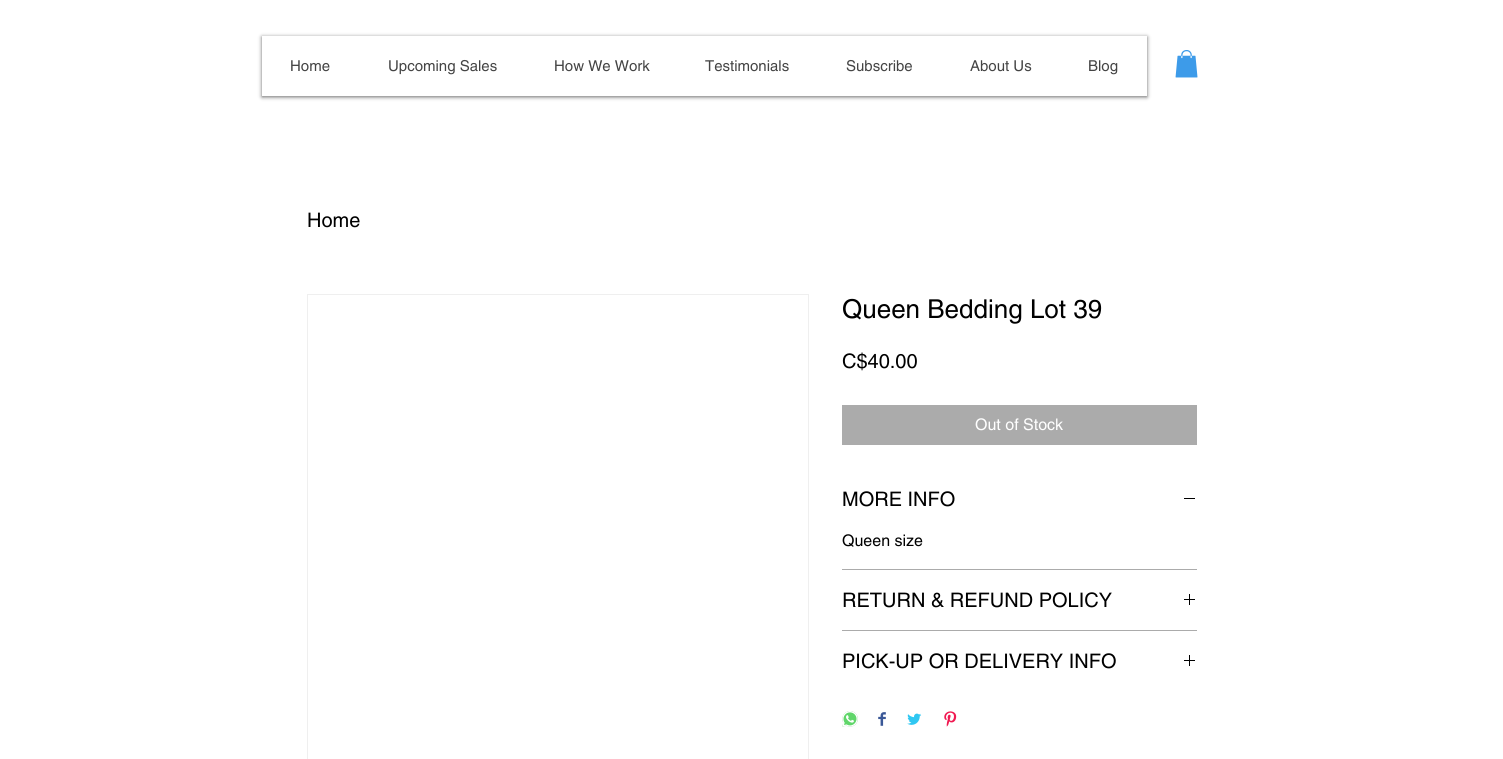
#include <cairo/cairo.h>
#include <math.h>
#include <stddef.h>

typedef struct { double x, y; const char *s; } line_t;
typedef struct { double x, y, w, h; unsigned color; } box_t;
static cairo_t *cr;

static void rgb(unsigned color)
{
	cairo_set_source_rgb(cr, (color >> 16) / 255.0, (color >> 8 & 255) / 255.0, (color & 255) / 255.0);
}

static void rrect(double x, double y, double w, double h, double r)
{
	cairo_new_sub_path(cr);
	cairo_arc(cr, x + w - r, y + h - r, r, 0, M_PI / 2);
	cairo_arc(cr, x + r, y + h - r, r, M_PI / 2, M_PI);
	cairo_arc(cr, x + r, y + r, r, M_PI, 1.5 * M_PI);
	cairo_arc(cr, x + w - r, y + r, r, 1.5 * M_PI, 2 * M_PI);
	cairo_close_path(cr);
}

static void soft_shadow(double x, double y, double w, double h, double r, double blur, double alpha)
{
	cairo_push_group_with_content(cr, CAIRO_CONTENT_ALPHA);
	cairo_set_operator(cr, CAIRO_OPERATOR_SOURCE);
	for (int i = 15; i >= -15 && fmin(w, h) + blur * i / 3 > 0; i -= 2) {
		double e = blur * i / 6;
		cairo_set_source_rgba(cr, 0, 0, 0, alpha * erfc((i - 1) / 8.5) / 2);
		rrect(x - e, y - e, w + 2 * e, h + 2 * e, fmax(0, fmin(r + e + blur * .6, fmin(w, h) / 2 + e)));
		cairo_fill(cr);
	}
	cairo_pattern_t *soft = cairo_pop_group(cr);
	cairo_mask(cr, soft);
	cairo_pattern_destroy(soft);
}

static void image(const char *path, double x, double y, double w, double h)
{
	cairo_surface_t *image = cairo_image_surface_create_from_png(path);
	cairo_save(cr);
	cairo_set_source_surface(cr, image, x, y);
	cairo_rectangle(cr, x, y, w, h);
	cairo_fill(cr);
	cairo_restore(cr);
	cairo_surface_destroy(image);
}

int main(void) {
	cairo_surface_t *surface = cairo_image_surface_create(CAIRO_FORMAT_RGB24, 1503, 759);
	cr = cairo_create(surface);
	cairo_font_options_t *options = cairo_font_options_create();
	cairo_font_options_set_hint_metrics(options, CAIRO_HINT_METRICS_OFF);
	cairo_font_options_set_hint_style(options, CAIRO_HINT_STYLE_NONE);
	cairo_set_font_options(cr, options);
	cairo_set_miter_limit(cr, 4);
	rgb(0xffffff);
	cairo_paint(cr);
	cairo_save(cr);
	cairo_set_fill_rule(cr, CAIRO_FILL_RULE_EVEN_ODD);
	cairo_new_path(cr);
	cairo_move_to(cr, 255, 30);
	cairo_line_to(cr, 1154, 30);
	cairo_line_to(cr, 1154, 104);
	cairo_line_to(cr, 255, 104);
	cairo_close_path(cr);
	cairo_move_to(cr, 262, 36);
	cairo_line_to(cr, 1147, 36);
	cairo_line_to(cr, 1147, 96);
	cairo_line_to(cr, 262, 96);
	cairo_close_path(cr);
	cairo_clip(cr);
	rgb(0x000000);
	soft_shadow(262, 37, 885, 60, 0, 2, 0.6);
	cairo_restore(cr);
	image("img/1.png", 1175, 50, 23, 28);
	cairo_rectangle(cr, 307.5, 294.5, 501, 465);
	rgb(0xefefef);
	cairo_set_line_width(cr, 1);
	cairo_stroke(cr);
	{
		static const box_t items[] = {
			{842, 405, 355, 40, 0xababab},
			{842, 569, 355, 1, 0xababab},
			{1184, 498, 11, 1, 0x000000},
			{842, 630, 355, 1, 0xababab},
		};
		for (size_t i = 0; i < sizeof items / sizeof *items; i++) {
			rgb(items[i].color);
			cairo_rectangle(cr, items[i].x, items[i].y, items[i].w, items[i].h);
			cairo_fill(cr);
		}
	}
	image("img/2.png", 1184, 594, 11, 11);
	image("img/2.png", 1184, 655, 11, 11);
	image("img/3.png", 842, 711, 16, 16);
	image("img/4.png", 878, 712, 8, 14);
	image("img/5.png", 907, 713, 15, 12);
	image("img/6.png", 944, 711, 13, 16);
	cairo_select_font_face(cr, "helvetica", CAIRO_FONT_SLANT_NORMAL, CAIRO_FONT_WEIGHT_NORMAL);
	cairo_set_font_size(cr, 15);
	rgb(0x444444);
	{
		static const line_t items[] = {
			{290, 71, "Home"},
			{388, 71, "Upcoming Sales"},
			{554, 71, "How We Work"},
			{705, 71, "Testimonials"},
			{846, 71, "Subscribe"},
			{970, 71, "About Us"},
			{1088, 71, "Blog"},
		};
		for (size_t i = 0; i < sizeof items / sizeof *items; i++) {
			cairo_move_to(cr, items[i].x, items[i].y);
			cairo_show_text(cr, items[i].s);
		}
	}
	cairo_set_font_size(cr, 20);
	rgb(0x000000);
	cairo_move_to(cr, 307, 227);
	cairo_show_text(cr, "Home");
	cairo_set_font_size(cr, 26);
	cairo_move_to(cr, 842, 318);
	cairo_show_text(cr, "Queen Bedding Lot 39");
	cairo_set_font_size(cr, 20);
	cairo_move_to(cr, 842, 368);
	cairo_show_text(cr, "C$40.00");
	cairo_set_font_size(cr, 16);
	rgb(0xffffff);
	cairo_move_to(cr, 975, 430);
	cairo_show_text(cr, "Out of Stock");
	cairo_set_font_size(cr, 20);
	rgb(0x000000);
	cairo_move_to(cr, 842, 506);
	cairo_show_text(cr, "MORE INFO");
	cairo_set_font_size(cr, 16);
	cairo_move_to(cr, 842, 546);
	cairo_show_text(cr, "Queen size");
	cairo_set_font_size(cr, 20);
	cairo_move_to(cr, 842, 607);
	cairo_show_text(cr, "RETURN & REFUND POLICY");
	cairo_move_to(cr, 842, 668);
	cairo_show_text(cr, "PICK-UP OR DELIVERY INFO");
	cairo_surface_write_to_png(surface, "page.png");
	cairo_font_options_destroy(options);
	cairo_destroy(cr);
	cairo_surface_destroy(surface);
	return 0;
}
